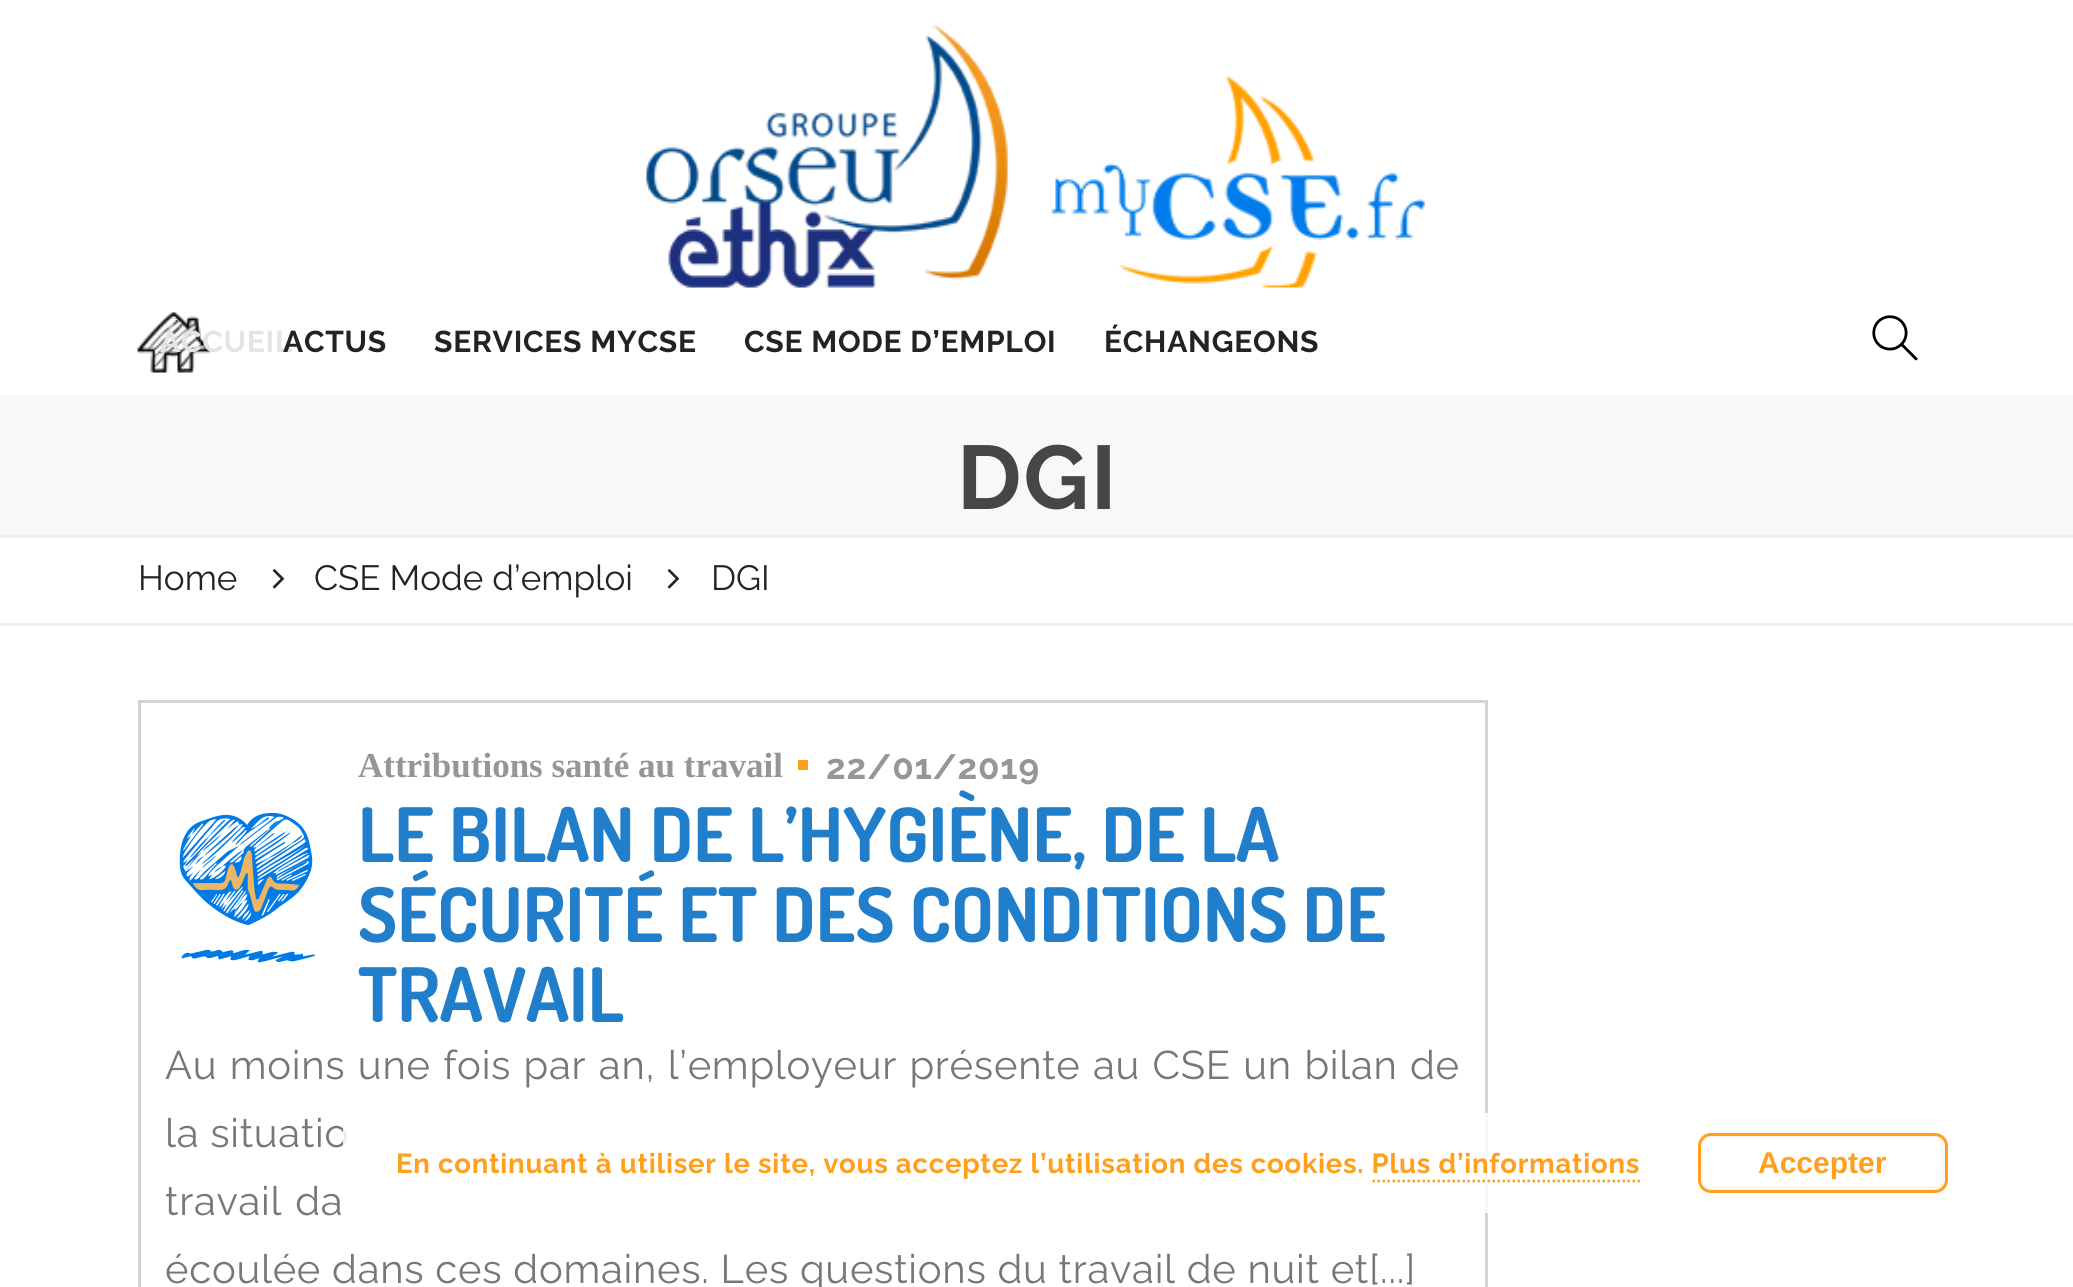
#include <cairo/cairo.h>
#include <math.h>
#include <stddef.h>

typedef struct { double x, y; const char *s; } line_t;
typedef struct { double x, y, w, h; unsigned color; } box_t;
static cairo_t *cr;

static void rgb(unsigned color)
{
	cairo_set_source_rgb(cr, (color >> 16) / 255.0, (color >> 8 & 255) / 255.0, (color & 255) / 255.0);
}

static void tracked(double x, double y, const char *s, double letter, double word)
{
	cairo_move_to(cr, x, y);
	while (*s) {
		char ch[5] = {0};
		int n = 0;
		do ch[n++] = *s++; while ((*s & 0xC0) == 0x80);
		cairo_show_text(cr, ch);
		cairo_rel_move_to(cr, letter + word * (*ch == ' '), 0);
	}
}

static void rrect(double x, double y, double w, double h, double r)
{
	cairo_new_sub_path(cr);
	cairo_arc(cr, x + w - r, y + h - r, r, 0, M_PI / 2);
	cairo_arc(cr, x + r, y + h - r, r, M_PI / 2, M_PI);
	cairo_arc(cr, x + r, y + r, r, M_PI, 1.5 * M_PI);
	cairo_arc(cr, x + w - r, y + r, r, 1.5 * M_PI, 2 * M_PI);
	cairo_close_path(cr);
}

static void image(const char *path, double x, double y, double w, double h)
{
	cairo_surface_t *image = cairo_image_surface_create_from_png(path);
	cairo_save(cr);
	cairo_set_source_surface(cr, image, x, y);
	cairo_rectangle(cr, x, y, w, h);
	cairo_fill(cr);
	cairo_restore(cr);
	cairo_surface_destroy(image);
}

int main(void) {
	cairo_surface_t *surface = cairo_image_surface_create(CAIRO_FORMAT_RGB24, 2073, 1287);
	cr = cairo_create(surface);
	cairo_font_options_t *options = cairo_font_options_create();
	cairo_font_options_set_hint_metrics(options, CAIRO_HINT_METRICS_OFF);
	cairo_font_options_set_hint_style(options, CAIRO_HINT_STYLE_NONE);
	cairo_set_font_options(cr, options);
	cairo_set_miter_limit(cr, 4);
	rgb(0xffffff);
	cairo_paint(cr);
	image("img/1.png", 646, 25, 780, 263);
	image("img/2.png", 137, 312, 73, 61);
	image("img/3.png", 1872, 315, 46, 46);
	{
		static const box_t items[] = {
			{0, 395, 2073, 140, 0xf8f8f8},
			{0, 535, 2073, 3, 0xeeeeee},
			{0, 623, 2073, 3, 0xeeeeee},
		};
		for (size_t i = 0; i < sizeof items / sizeof *items; i++) {
			rgb(items[i].color);
			cairo_rectangle(cr, items[i].x, items[i].y, items[i].w, items[i].h);
			cairo_fill(cr);
		}
	}
	image("img/4.png", 272, 569, 13, 20);
	image("img/4.png", 667, 569, 13, 20);
	{
		static const box_t items[] = {
			{138, 700, 1350, 3, 0xd3d3d3},
			{1485, 700, 3, 587, 0xd3d3d3},
			{138, 700, 3, 587, 0xd3d3d3},
		};
		for (size_t i = 0; i < sizeof items / sizeof *items; i++) {
			rgb(items[i].color);
			cairo_rectangle(cr, items[i].x, items[i].y, items[i].w, items[i].h);
			cairo_fill(cr);
		}
	}
	image("img/5.png", 179, 812, 136, 151);
	rgb(0xff9f1b);
	cairo_rectangle(cr, 798, 760, 10, 10);
	cairo_fill(cr);
	cairo_select_font_face(cr, "Raleway", CAIRO_FONT_SLANT_NORMAL, CAIRO_FONT_WEIGHT_BOLD);
	cairo_set_font_size(cr, 30);
	rgb(0xe4e4e4);
	tracked(160, 352, "ACCUEIL", 0.75, 0);
	rgb(0x232323);
	{
		static const line_t items[] = {
			{283, 352, "ACTUS"},
			{434, 352, "SERVICES MYCSE"},
			{744, 352, "CSE MODE D’EMPLOI"},
			{1104, 352, "ÉCHANGEONS"},
		};
		for (size_t i = 0; i < sizeof items / sizeof *items; i++) {
			tracked(items[i].x, items[i].y, items[i].s, 0.75, 0);
		}
	}
	cairo_set_font_size(cr, 90);
	rgb(0x464646);
	tracked(957, 509, "DGI", 2, 0);
	cairo_select_font_face(cr, "Raleway", CAIRO_FONT_SLANT_NORMAL, CAIRO_FONT_WEIGHT_NORMAL);
	cairo_set_font_size(cr, 35);
	rgb(0x232323);
	{
		static const line_t items[] = {
			{138, 590, "Home"},
			{314, 590, "CSE Mode d’emploi"},
			{711, 590, "DGI"},
		};
		for (size_t i = 0; i < sizeof items / sizeof *items; i++) {
			cairo_move_to(cr, items[i].x, items[i].y);
			cairo_show_text(cr, items[i].s);
		}
	}
	cairo_select_font_face(cr, "Liberation Serif", CAIRO_FONT_SLANT_NORMAL, CAIRO_FONT_WEIGHT_BOLD);
	rgb(0x969696);
	cairo_move_to(cr, 358, 777);
	cairo_show_text(cr, "Attributions santé au travail");
	cairo_select_font_face(cr, "Raleway", CAIRO_FONT_SLANT_NORMAL, CAIRO_FONT_WEIGHT_BOLD);
	tracked(826, 779, "22/01/2019", 0.75, 0);
	cairo_select_font_face(cr, "Dosis", CAIRO_FONT_SLANT_NORMAL, CAIRO_FONT_WEIGHT_BOLD);
	cairo_set_font_size(cr, 75);
	rgb(0x217eca);
	{
		static const line_t items[] = {
			{358, 862, "LE BILAN DE L’HYGIÈNE, DE LA"},
			{358, 942, "SÉCURITÉ ET DES CONDITIONS DE"},
			{358, 1022, "TRAVAIL"},
		};
		for (size_t i = 0; i < sizeof items / sizeof *items; i++) {
			cairo_move_to(cr, items[i].x, items[i].y);
			cairo_show_text(cr, items[i].s);
		}
	}
	cairo_select_font_face(cr, "Raleway", CAIRO_FONT_SLANT_NORMAL, CAIRO_FONT_WEIGHT_NORMAL);
	cairo_set_font_size(cr, 40);
	rgb(0x777777);
	tracked(165, 1079, "Au moins une fois par an, l’employeur présente au CSE un bilan de", 0.75, 1.5);
	tracked(165, 1147, "la situatio", 0.75, 0);
	tracked(165, 1215, "travail da", 0.75, 2);
	tracked(165, 1283, "écoulée dans ces domaines. Les questions du travail de nuit et[...]", 0.75, 0);
	cairo_set_source_rgba(cr, 1, 1, 1, 0.85);
	rrect(343, 1113, 1657, 100, 13);
	cairo_fill(cr);
	cairo_select_font_face(cr, "Raleway", CAIRO_FONT_SLANT_NORMAL, CAIRO_FONT_WEIGHT_BOLD);
	cairo_set_font_size(cr, 27.5);
	rgb(0xff9f1b);
	tracked(396, 1173, "En continuant à utiliser le site, vous acceptez l’utilisation des cookies. Plus d’informations", 0.75, 0);
	rrect(1701.5, 1136.5, 242, 52, 8.5);
	rgb(0xf6f6f6);
	cairo_set_line_width(cr, 3);
	cairo_stroke(cr);
	rrect(1699.5, 1134.5, 247, 57, 11.5);
	rgb(0xff9f1b);
	cairo_stroke(cr);
	cairo_select_font_face(cr, "Liberation Sans", CAIRO_FONT_SLANT_NORMAL, CAIRO_FONT_WEIGHT_BOLD);
	cairo_set_font_size(cr, 30);
	cairo_move_to(cr, 1758, 1173);
	cairo_show_text(cr, "Accepter");
	cairo_new_path(cr);
	cairo_move_to(cr, 1372.5, 1181);
	cairo_line_to(cr, 1640, 1181);
	cairo_set_line_width(cr, 2.5);
	cairo_set_dash(cr, (double[]){2.5, 2.5}, 2, 0);
	cairo_stroke(cr);
	cairo_surface_write_to_png(surface, "page.png");
	cairo_font_options_destroy(options);
	cairo_destroy(cr);
	cairo_surface_destroy(surface);
	return 0;
}
